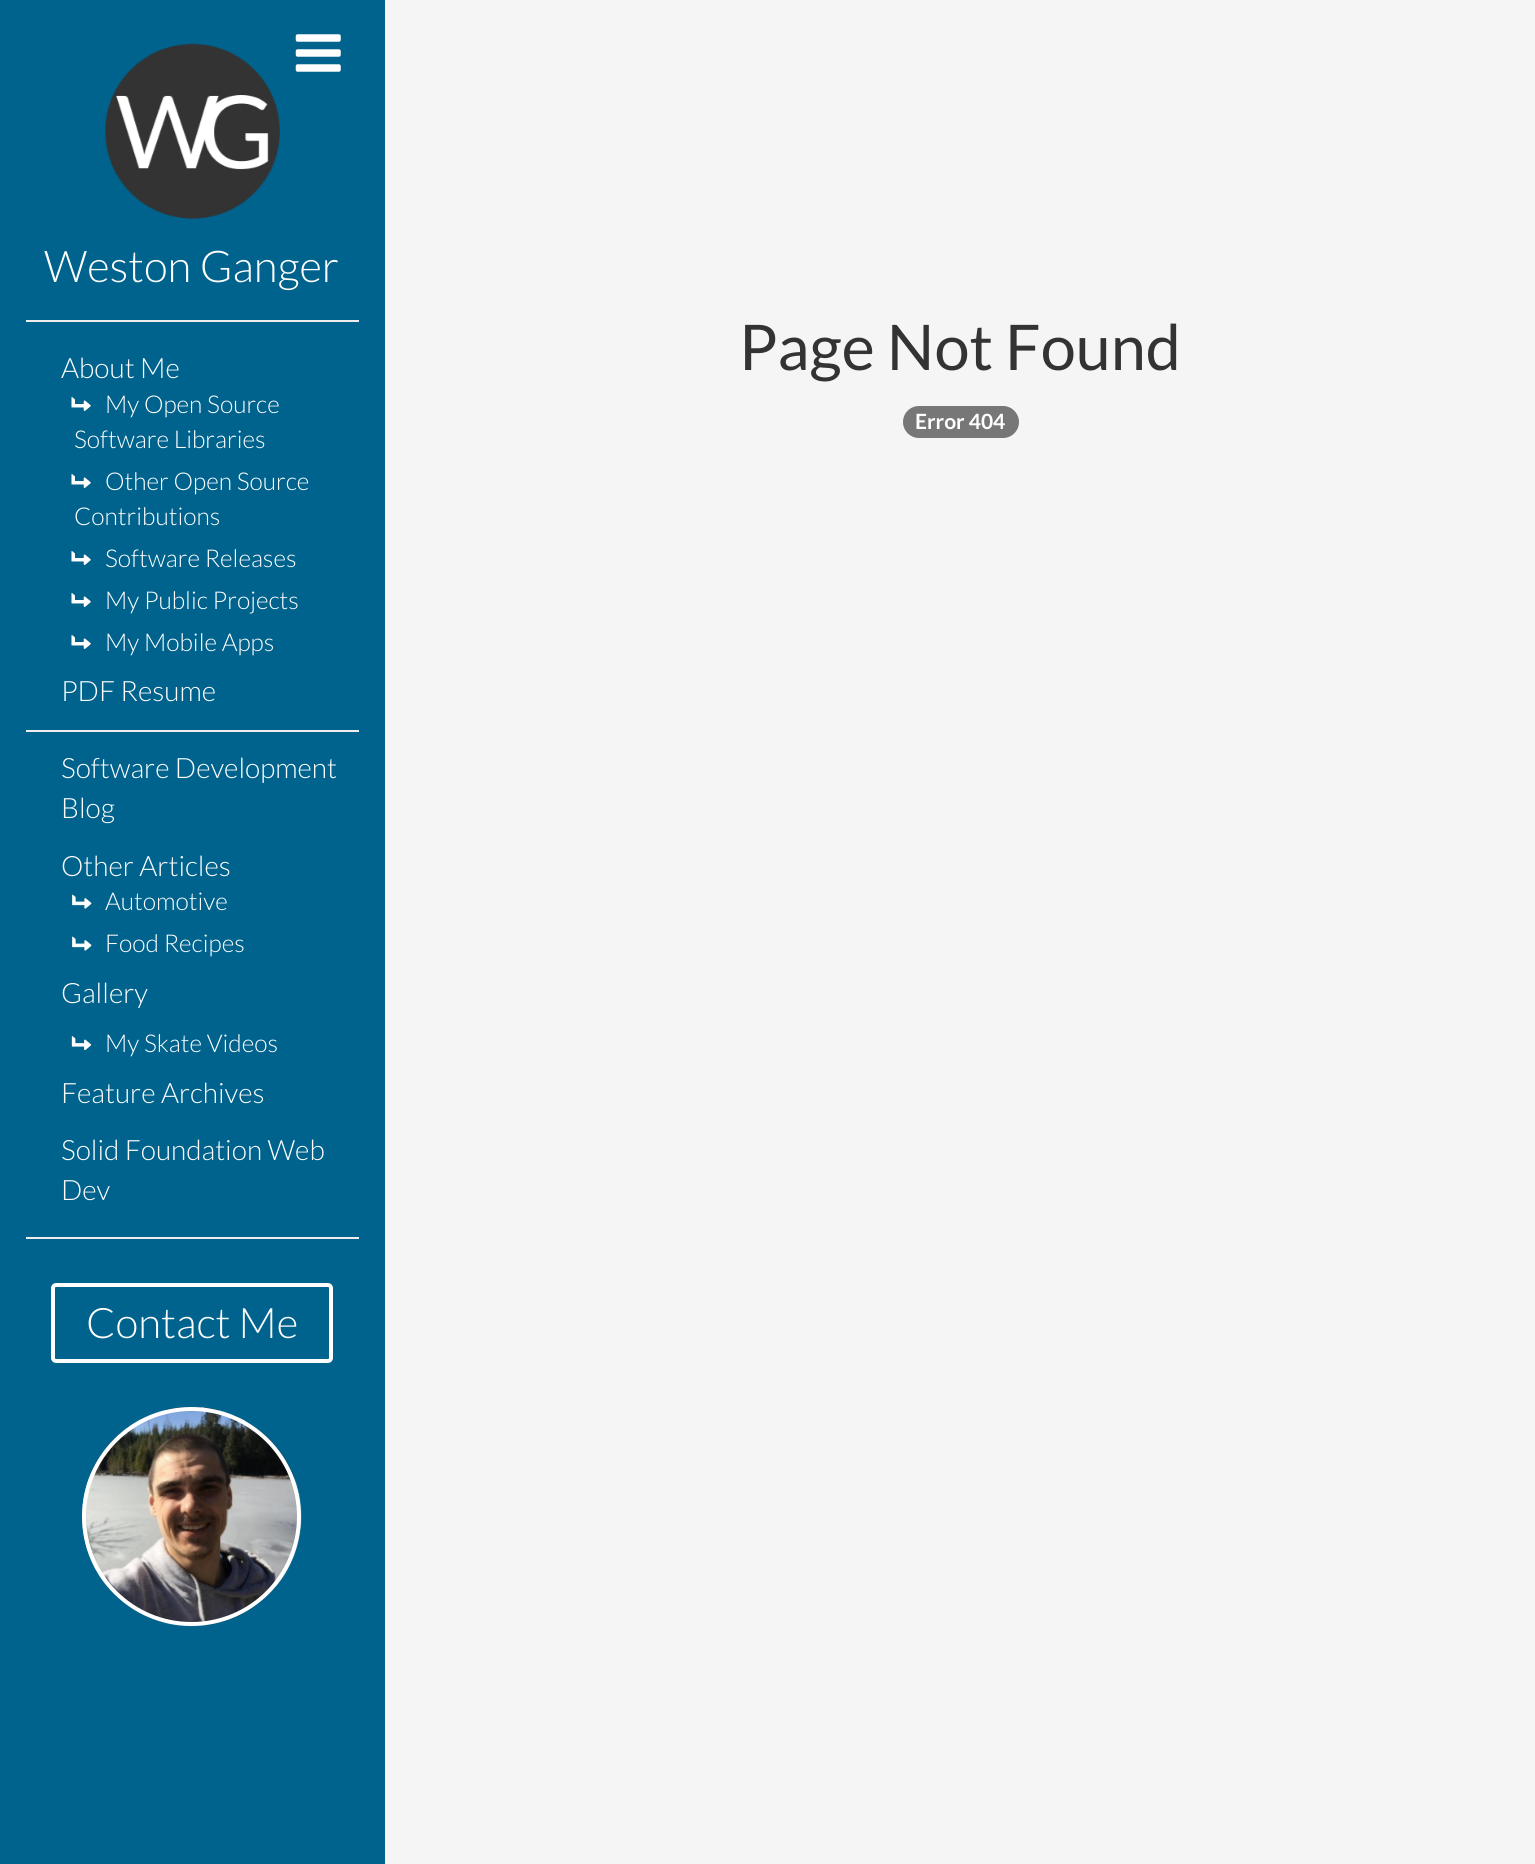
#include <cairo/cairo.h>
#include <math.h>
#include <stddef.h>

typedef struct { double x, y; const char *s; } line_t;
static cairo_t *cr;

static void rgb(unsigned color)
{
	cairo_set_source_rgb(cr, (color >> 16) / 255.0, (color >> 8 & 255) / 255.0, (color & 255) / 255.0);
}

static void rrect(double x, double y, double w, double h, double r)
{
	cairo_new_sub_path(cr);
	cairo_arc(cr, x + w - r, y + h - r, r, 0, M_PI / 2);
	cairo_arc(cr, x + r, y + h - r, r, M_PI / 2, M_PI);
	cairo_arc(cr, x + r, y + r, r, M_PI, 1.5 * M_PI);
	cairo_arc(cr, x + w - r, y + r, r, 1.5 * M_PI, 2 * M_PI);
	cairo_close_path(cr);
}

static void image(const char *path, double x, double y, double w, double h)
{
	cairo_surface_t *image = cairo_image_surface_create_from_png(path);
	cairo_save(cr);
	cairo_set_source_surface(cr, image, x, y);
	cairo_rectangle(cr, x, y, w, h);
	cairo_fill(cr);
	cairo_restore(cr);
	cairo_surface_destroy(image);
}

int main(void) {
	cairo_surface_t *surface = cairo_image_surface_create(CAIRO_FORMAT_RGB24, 1535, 1864);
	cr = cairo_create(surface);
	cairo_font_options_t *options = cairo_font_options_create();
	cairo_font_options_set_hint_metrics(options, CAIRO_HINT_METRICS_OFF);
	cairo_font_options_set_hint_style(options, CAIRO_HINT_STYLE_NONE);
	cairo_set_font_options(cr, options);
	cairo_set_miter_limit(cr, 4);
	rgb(0xf5f5f5);
	cairo_paint(cr);
	rgb(0x00638d);
	cairo_rectangle(cr, 0, 0, 385, 1864);
	cairo_fill(cr);
	image("img/1.png", 105, 43, 175, 176);
	image("img/2.png", 295, 34, 46, 38);
	rgb(0xeeeeee);
	cairo_rectangle(cr, 26, 320, 333, 2);
	cairo_fill(cr);
	image("img/3.png", 71, 397, 20, 14);
	image("img/3.png", 71, 474, 20, 14);
	image("img/3.png", 71, 551, 20, 14);
	image("img/3.png", 71, 593, 20, 14);
	image("img/3.png", 71, 635, 20, 14);
	cairo_rectangle(cr, 26, 730, 333, 2);
	cairo_fill(cr);
	image("img/4.png", 72, 894, 20, 15);
	image("img/4.png", 72, 936, 20, 15);
	image("img/5.png", 71, 1036, 21, 15);
	cairo_rectangle(cr, 26, 1237, 333, 2);
	cairo_fill(cr);
	rrect(53, 1285, 278, 76, 3);
	rgb(0xffffff);
	cairo_set_line_width(cr, 4);
	cairo_stroke(cr);
	image("img/6.png", 82, 1407, 220, 220);
	cairo_arc(cr, 191.5, 1516.5, 107.5, 0, 2 * M_PI);
	cairo_stroke(cr);
	rgb(0x777777);
	rrect(903, 406, 116, 32, 16);
	cairo_fill(cr);
	cairo_select_font_face(cr, "Lato Light", CAIRO_FONT_SLANT_NORMAL, CAIRO_FONT_WEIGHT_NORMAL);
	cairo_set_font_size(cr, 43.75);
	rgb(0xffffff);
	cairo_move_to(cr, 44, 282);
	cairo_show_text(cr, "Weston Ganger");
	cairo_set_font_size(cr, 28);
	cairo_move_to(cr, 61, 378);
	cairo_show_text(cr, "About Me");
	cairo_set_font_size(cr, 24.5);
	{
		static const line_t items[] = {
			{105, 413, "My Open Source"},
			{74, 448, "Software Libraries"},
			{105, 490, "Other Open Source"},
			{74, 525, "Contributions"},
			{105, 567, "Software Releases"},
			{105, 609, "My Public Projects"},
			{105, 651, "My Mobile Apps"},
		};
		for (size_t i = 0; i < sizeof items / sizeof *items; i++) {
			cairo_move_to(cr, items[i].x, items[i].y);
			cairo_show_text(cr, items[i].s);
		}
	}
	cairo_set_font_size(cr, 28);
	{
		static const line_t items[] = {
			{61, 701, "PDF Resume"},
			{61, 778, "Software Development"},
			{61, 818, "Blog"},
			{61, 876, "Other Articles"},
		};
		for (size_t i = 0; i < sizeof items / sizeof *items; i++) {
			cairo_move_to(cr, items[i].x, items[i].y);
			cairo_show_text(cr, items[i].s);
		}
	}
	cairo_set_font_size(cr, 24.5);
	cairo_move_to(cr, 105, 910);
	cairo_show_text(cr, "Automotive");
	cairo_move_to(cr, 105, 952);
	cairo_show_text(cr, "Food Recipes");
	cairo_set_font_size(cr, 28);
	cairo_move_to(cr, 61, 1003);
	cairo_show_text(cr, "Gallery");
	cairo_set_font_size(cr, 24.5);
	cairo_move_to(cr, 105, 1052);
	cairo_show_text(cr, "My Skate Videos");
	cairo_set_font_size(cr, 28);
	{
		static const line_t items[] = {
			{61, 1103, "Feature Archives"},
			{61, 1160, "Solid Foundation Web"},
			{61, 1200, "Dev"},
		};
		for (size_t i = 0; i < sizeof items / sizeof *items; i++) {
			cairo_move_to(cr, items[i].x, items[i].y);
			cairo_show_text(cr, items[i].s);
		}
	}
	cairo_set_font_size(cr, 42);
	cairo_move_to(cr, 86, 1338);
	cairo_show_text(cr, "Contact Me");
	cairo_select_font_face(cr, "Lato", CAIRO_FONT_SLANT_NORMAL, CAIRO_FONT_WEIGHT_NORMAL);
	cairo_set_font_size(cr, 63);
	rgb(0x333333);
	cairo_move_to(cr, 739, 370);
	cairo_show_text(cr, "Page Not Found");
	cairo_select_font_face(cr, "Lato", CAIRO_FONT_SLANT_NORMAL, CAIRO_FONT_WEIGHT_BOLD);
	cairo_set_font_size(cr, 21);
	rgb(0xffffff);
	cairo_move_to(cr, 915, 429);
	cairo_show_text(cr, "Error 404");
	cairo_surface_write_to_png(surface, "page.png");
	cairo_font_options_destroy(options);
	cairo_destroy(cr);
	cairo_surface_destroy(surface);
	return 0;
}
